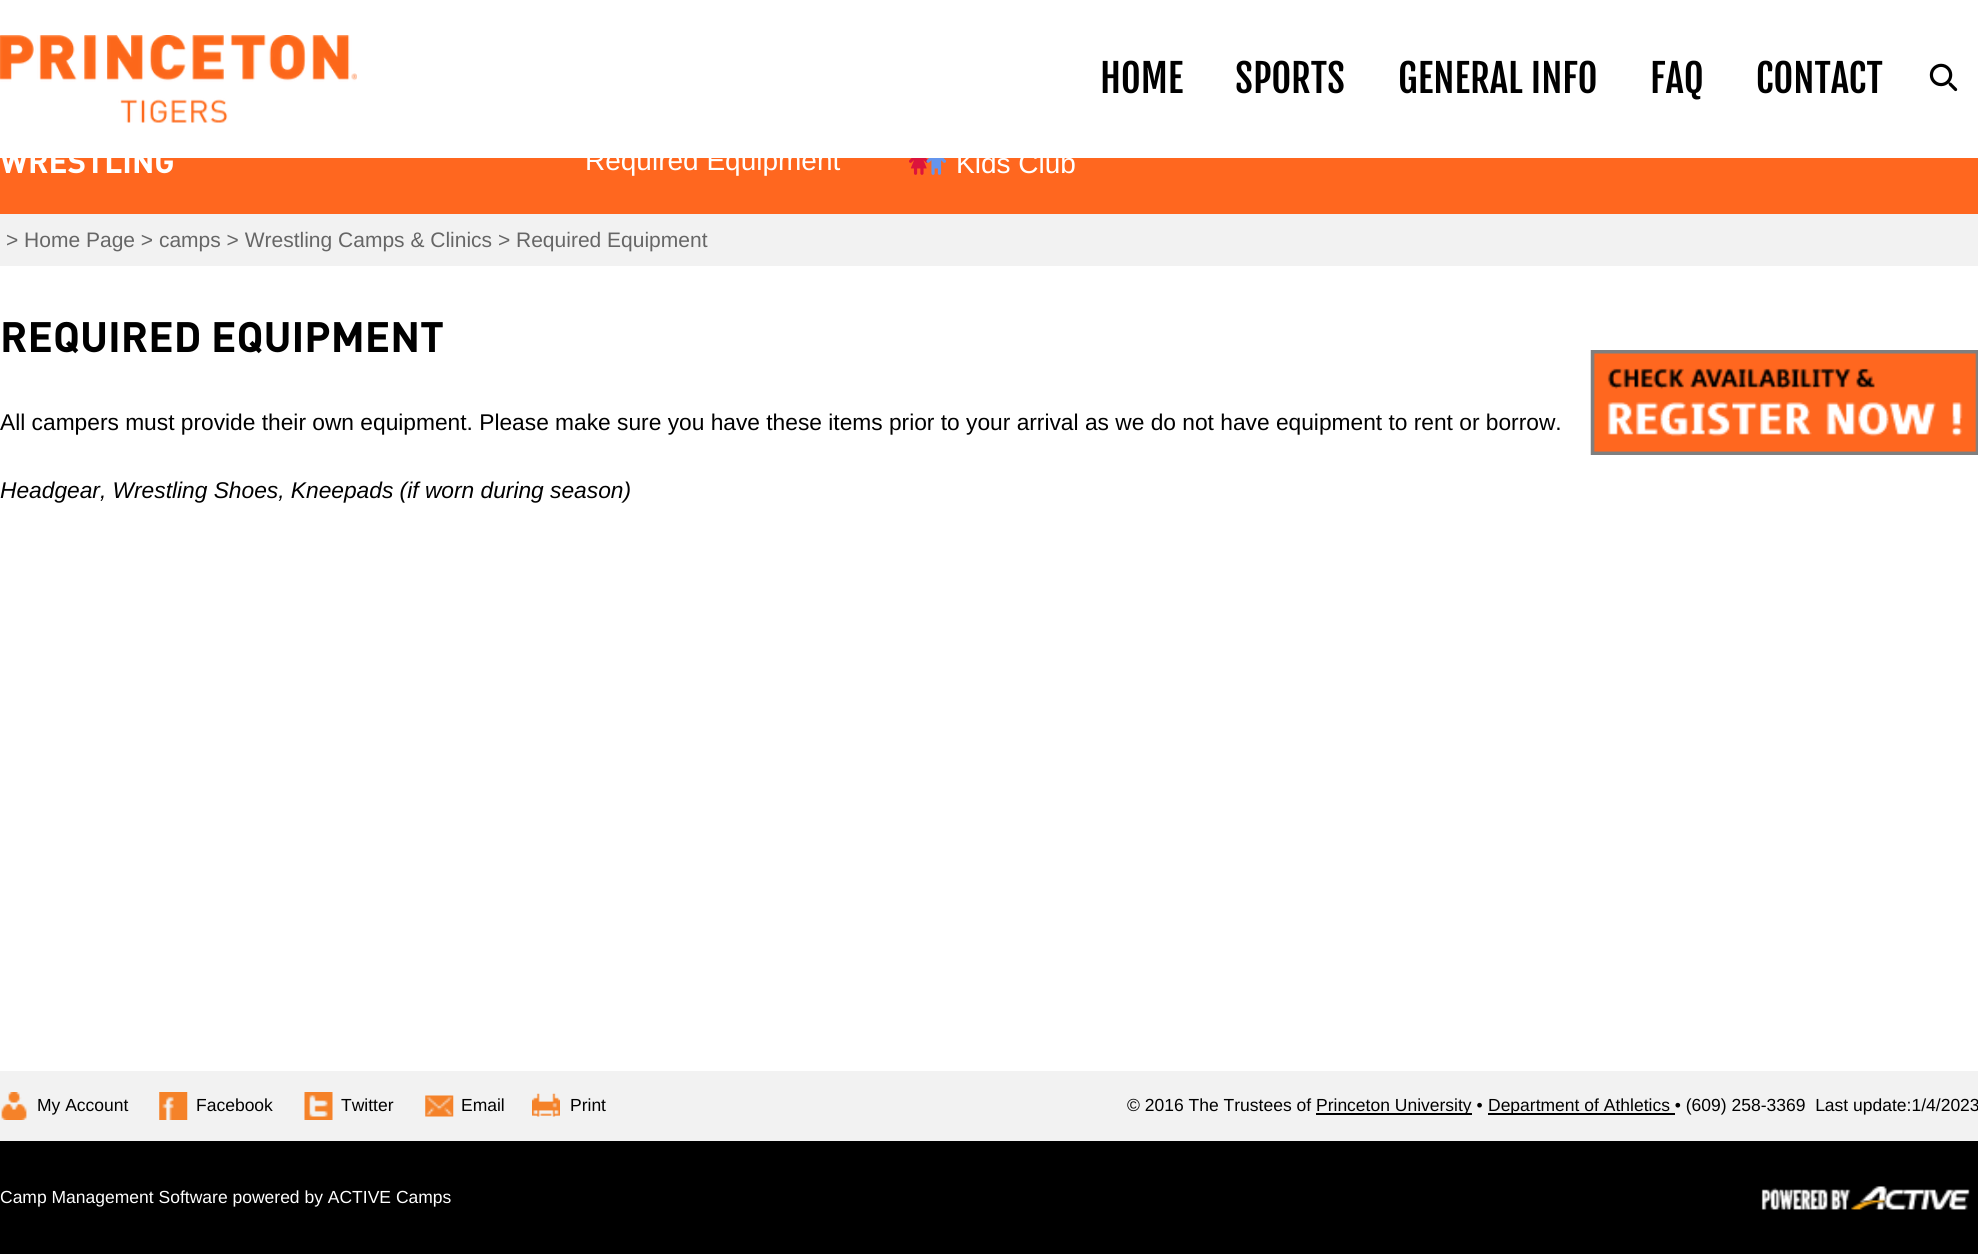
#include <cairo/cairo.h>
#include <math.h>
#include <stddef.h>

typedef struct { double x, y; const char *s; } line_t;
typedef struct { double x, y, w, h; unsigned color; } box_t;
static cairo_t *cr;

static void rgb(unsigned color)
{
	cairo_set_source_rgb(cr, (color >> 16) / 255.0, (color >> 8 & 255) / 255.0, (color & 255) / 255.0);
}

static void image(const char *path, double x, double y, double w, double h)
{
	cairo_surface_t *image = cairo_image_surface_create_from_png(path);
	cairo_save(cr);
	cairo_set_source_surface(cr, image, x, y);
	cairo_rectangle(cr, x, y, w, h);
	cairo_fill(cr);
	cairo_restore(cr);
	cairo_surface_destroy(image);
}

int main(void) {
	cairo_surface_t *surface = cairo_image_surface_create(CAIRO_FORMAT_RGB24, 1978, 1254);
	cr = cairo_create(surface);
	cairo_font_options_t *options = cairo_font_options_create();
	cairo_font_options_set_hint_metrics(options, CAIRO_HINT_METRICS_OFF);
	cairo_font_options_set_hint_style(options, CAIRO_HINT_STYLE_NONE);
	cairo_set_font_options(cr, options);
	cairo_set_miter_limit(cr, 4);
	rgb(0xffffff);
	cairo_paint(cr);
	image("img/1.png", 0, 35, 357, 88);
	image("img/2.png", 1929, 63, 29, 29);
	rgb(0xff671f);
	cairo_rectangle(cr, 0, 158, 1978, 56);
	cairo_fill(cr);
	image("img/3.png", 909, 158, 20, 17);
	image("img/4.png", 926, 158, 20, 17);
	rgb(0xf2f2f2);
	cairo_rectangle(cr, 0, 214, 1978, 52);
	cairo_fill(cr);
	image("img/5.png", 1590, 350, 388, 105);
	cairo_rectangle(cr, 0, 1071, 1978, 70);
	cairo_fill(cr);
	image("img/6.png", 1, 1092, 26, 28);
	image("img/7.png", 159, 1092, 29, 28);
	image("img/8.png", 304, 1092, 29, 28);
	image("img/9.png", 425, 1095, 29, 22);
	image("img/10.png", 532, 1093, 28, 24);
	{
		static const box_t items[] = {
			{1316, 1113, 156, 2, 0x000000},
			{1488, 1113, 187, 2, 0x000000},
			{0, 1141, 1978, 113, 0x000000},
		};
		for (size_t i = 0; i < sizeof items / sizeof *items; i++) {
			rgb(items[i].color);
			cairo_rectangle(cr, items[i].x, items[i].y, items[i].w, items[i].h);
			cairo_fill(cr);
		}
	}
	image("img/11.png", 1761, 1186, 209, 24);
	cairo_select_font_face(cr, "Fjalla One", CAIRO_FONT_SLANT_NORMAL, CAIRO_FONT_WEIGHT_NORMAL);
	cairo_set_font_size(cr, 38.5);
	{
		static const line_t items[] = {
			{1100, 93, "HOME"},
			{1235, 93, "SPORTS"},
			{1398, 93, "GENERAL INFO"},
			{1650, 93, "FAQ"},
			{1756, 93, "CONTACT"},
		};
		for (size_t i = 0; i < sizeof items / sizeof *items; i++) {
			cairo_move_to(cr, items[i].x, items[i].y);
			cairo_show_text(cr, items[i].s);
		}
	}
	cairo_select_font_face(cr, "DIN", CAIRO_FONT_SLANT_NORMAL, CAIRO_FONT_WEIGHT_BOLD);
	cairo_set_font_size(cr, 31.5);
	rgb(0xffffff);
	cairo_move_to(cr, 0, 173);
	cairo_show_text(cr, "WRESTLING");
	cairo_select_font_face(cr, "Liberation Sans", CAIRO_FONT_SLANT_NORMAL, CAIRO_FONT_WEIGHT_NORMAL);
	cairo_set_font_size(cr, 28);
	cairo_move_to(cr, 585, 170);
	cairo_show_text(cr, "Required Equipment");
	cairo_move_to(cr, 956, 173);
	cairo_show_text(cr, "Kids Club");
	cairo_set_font_size(cr, 21);
	rgb(0x666666);
	cairo_move_to(cr, 6, 247);
	cairo_show_text(cr, "> Home Page > camps > Wrestling Camps & Clinics > Required Equipment");
	cairo_select_font_face(cr, "DIN", CAIRO_FONT_SLANT_NORMAL, CAIRO_FONT_WEIGHT_BOLD);
	cairo_set_font_size(cr, 42);
	rgb(0x000000);
	cairo_move_to(cr, 0, 352);
	cairo_show_text(cr, "REQUIRED EQUIPMENT");
	cairo_select_font_face(cr, "Liberation Sans", CAIRO_FONT_SLANT_NORMAL, CAIRO_FONT_WEIGHT_NORMAL);
	cairo_set_font_size(cr, 22.75);
	cairo_move_to(cr, 0, 430);
	cairo_show_text(cr, "All campers must provide their own equipment. Please make sure you have these items prior to your arrival as we do not have equipment to rent or borrow.");
	cairo_select_font_face(cr, "Liberation Sans", CAIRO_FONT_SLANT_ITALIC, CAIRO_FONT_WEIGHT_NORMAL);
	cairo_move_to(cr, 0, 498);
	cairo_show_text(cr, "Headgear, Wrestling Shoes, Kneepads (if worn during season)");
	cairo_select_font_face(cr, "Liberation Sans", CAIRO_FONT_SLANT_NORMAL, CAIRO_FONT_WEIGHT_NORMAL);
	cairo_set_font_size(cr, 17.5);
	{
		static const line_t items[] = {
			{37, 1111, "My Account"},
			{196, 1111, "Facebook"},
			{341, 1111, "Twitter"},
			{461, 1111, "Email"},
			{570, 1111, "Print"},
			{1127, 1111, "© 2016 The Trustees of"},
			{1316, 1111, "Princeton University •"},
			{1488, 1111, "Department of Athletics • (609) 258-3369  Last update:1/4/2023"},
		};
		for (size_t i = 0; i < sizeof items / sizeof *items; i++) {
			cairo_move_to(cr, items[i].x, items[i].y);
			cairo_show_text(cr, items[i].s);
		}
	}
	rgb(0xffffff);
	cairo_move_to(cr, 0, 1203);
	cairo_show_text(cr, "Camp Management Software powered by ACTIVE Camps");
	cairo_surface_write_to_png(surface, "page.png");
	cairo_font_options_destroy(options);
	cairo_destroy(cr);
	cairo_surface_destroy(surface);
	return 0;
}
